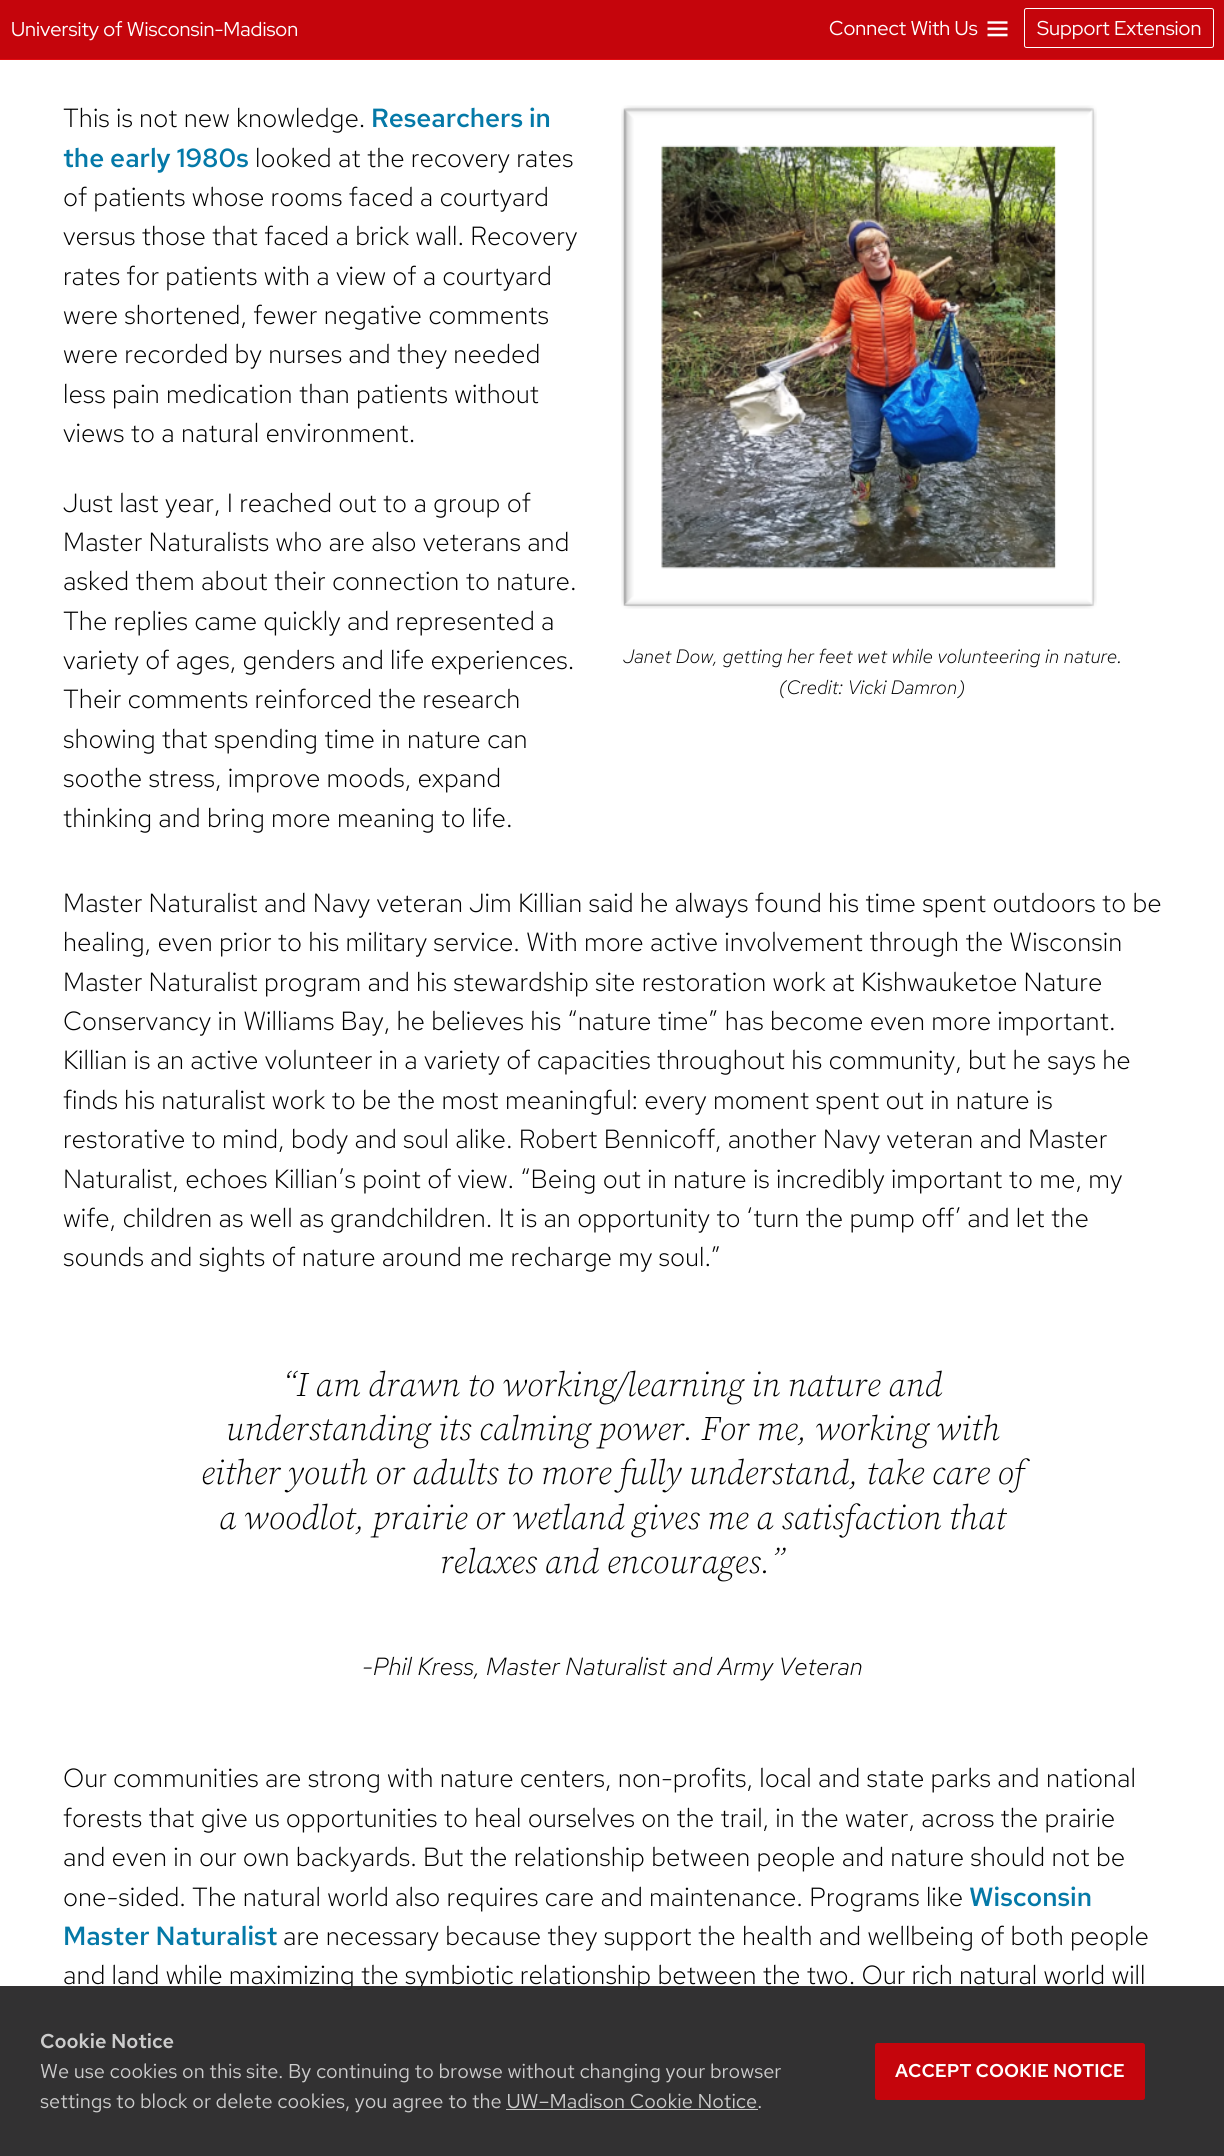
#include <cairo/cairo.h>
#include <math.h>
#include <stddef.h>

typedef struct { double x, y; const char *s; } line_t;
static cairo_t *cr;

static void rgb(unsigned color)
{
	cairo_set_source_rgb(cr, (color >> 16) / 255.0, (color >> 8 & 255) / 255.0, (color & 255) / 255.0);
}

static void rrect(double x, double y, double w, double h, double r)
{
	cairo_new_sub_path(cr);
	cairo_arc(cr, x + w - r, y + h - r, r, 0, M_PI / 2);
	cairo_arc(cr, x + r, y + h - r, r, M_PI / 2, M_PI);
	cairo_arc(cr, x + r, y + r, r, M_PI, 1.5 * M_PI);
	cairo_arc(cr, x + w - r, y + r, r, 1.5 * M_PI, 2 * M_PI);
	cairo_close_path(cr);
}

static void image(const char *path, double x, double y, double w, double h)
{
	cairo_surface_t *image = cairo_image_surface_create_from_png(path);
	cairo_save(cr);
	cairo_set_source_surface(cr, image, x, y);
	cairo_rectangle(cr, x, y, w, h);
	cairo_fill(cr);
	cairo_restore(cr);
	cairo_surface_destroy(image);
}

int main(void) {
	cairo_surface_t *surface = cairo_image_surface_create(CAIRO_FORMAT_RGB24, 1224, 2156);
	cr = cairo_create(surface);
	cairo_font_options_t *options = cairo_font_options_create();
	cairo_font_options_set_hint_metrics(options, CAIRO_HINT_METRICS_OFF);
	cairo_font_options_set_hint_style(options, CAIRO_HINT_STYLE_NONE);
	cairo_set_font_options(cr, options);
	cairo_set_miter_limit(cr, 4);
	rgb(0xffffff);
	cairo_paint(cr);
	rgb(0xc5050c);
	cairo_rectangle(cr, 0, 0, 1224, 59);
	cairo_fill(cr);
	rgb(0xe40b10);
	cairo_rectangle(cr, 0, 59, 1224, 1);
	cairo_fill(cr);
	image("img/1.png", 987, 21, 21, 16);
	rrect(1024.5, 8.5, 189, 39, 2);
	rgb(0xffffff);
	cairo_set_line_width(cr, 1);
	cairo_stroke(cr);
	image("img/2.png", 621, 105, 476, 504);
	cairo_select_font_face(cr, "Red Hat Display", CAIRO_FONT_SLANT_NORMAL, CAIRO_FONT_WEIGHT_NORMAL);
	cairo_set_font_size(cr, 20);
	{
		static const line_t items[] = {
			{11, 36, "University of Wisconsin-Madison"},
			{829, 35, "Connect With Us"},
			{1037, 35, "Support Extension"},
		};
		for (size_t i = 0; i < sizeof items / sizeof *items; i++) {
			cairo_move_to(cr, items[i].x, items[i].y);
			cairo_show_text(cr, items[i].s);
		}
	}
	cairo_select_font_face(cr, "Red Hat Text Light", CAIRO_FONT_SLANT_NORMAL, CAIRO_FONT_WEIGHT_NORMAL);
	cairo_set_font_size(cr, 26.25);
	rgb(0x000000);
	cairo_move_to(cr, 63, 127);
	cairo_show_text(cr, "This is not new knowledge.");
	cairo_select_font_face(cr, "Red Hat Text SemiBold", CAIRO_FONT_SLANT_NORMAL, CAIRO_FONT_WEIGHT_NORMAL);
	rgb(0x0479a8);
	cairo_move_to(cr, 371, 127);
	cairo_show_text(cr, "Researchers in");
	cairo_move_to(cr, 63, 167);
	cairo_show_text(cr, "the early 1980s");
	cairo_select_font_face(cr, "Red Hat Text Light", CAIRO_FONT_SLANT_NORMAL, CAIRO_FONT_WEIGHT_NORMAL);
	rgb(0x000000);
	{
		static const line_t items[] = {
			{255, 167, "looked at the recovery rates"},
			{63, 206, "of patients whose rooms faced a courtyard"},
			{63, 245, "versus those that faced a brick wall. Recovery"},
			{63, 285, "rates for patients with a view of a courtyard"},
			{63, 324, "were shortened, fewer negative comments"},
			{63, 363, "were recorded by nurses and they needed"},
			{63, 403, "less pain medication than patients without"},
			{63, 442, "views to a natural environment."},
			{63, 512, "Just last year, I reached out to a group of"},
			{63, 551, "Master Naturalists who are also veterans and"},
			{63, 590, "asked them about their connection to nature."},
			{63, 630, "The replies came quickly and represented a"},
			{63, 669, "variety of ages, genders and life experiences."},
			{63, 708, "Their comments reinforced the research"},
			{63, 748, "showing that spending time in nature can"},
			{63, 787, "soothe stress, improve moods, expand"},
			{63, 827, "thinking and bring more meaning to life."},
		};
		for (size_t i = 0; i < sizeof items / sizeof *items; i++) {
			cairo_move_to(cr, items[i].x, items[i].y);
			cairo_show_text(cr, items[i].s);
		}
	}
	cairo_select_font_face(cr, "Red Hat Text Light", CAIRO_FONT_SLANT_ITALIC, CAIRO_FONT_WEIGHT_NORMAL);
	cairo_set_font_size(cr, 19.4);
	cairo_move_to(cr, 623, 663);
	cairo_show_text(cr, "Janet Dow, getting her feet wet while volunteering in nature.");
	cairo_move_to(cr, 779, 694);
	cairo_show_text(cr, "(Credit: Vicki Damron)");
	cairo_select_font_face(cr, "Red Hat Text Light", CAIRO_FONT_SLANT_NORMAL, CAIRO_FONT_WEIGHT_NORMAL);
	cairo_set_font_size(cr, 26.25);
	{
		static const line_t items[] = {
			{63, 912, "Master Naturalist and Navy veteran Jim Killian said he always found his time spent outdoors to be"},
			{63, 951, "healing, even prior to his military service. With more active involvement through the Wisconsin"},
			{63, 991, "Master Naturalist program and his stewardship site restoration work at Kishwauketoe Nature"},
			{63, 1030, "Conservancy in Williams Bay, he believes his “nature time” has become even more important."},
			{63, 1069, "Killian is an active volunteer in a variety of capacities throughout his community, but he says he"},
			{63, 1109, "finds his naturalist work to be the most meaningful: every moment spent out in nature is"},
			{63, 1148, "restorative to mind, body and soul alike. Robert Bennicoff, another Navy veteran and Master"},
			{63, 1188, "Naturalist, echoes Killian’s point of view. “Being out in nature is incredibly important to me, my"},
			{63, 1227, "wife, children as well as grandchildren. It is an opportunity to ‘turn the pump off’ and let the"},
			{63, 1266, "sounds and sights of nature around me recharge my soul.”"},
		};
		for (size_t i = 0; i < sizeof items / sizeof *items; i++) {
			cairo_move_to(cr, items[i].x, items[i].y);
			cairo_show_text(cr, items[i].s);
		}
	}
	cairo_select_font_face(cr, "Source Serif 4 Light", CAIRO_FONT_SLANT_ITALIC, CAIRO_FONT_WEIGHT_NORMAL);
	cairo_set_font_size(cr, 34.1);
	{
		static const line_t items[] = {
			{282, 1396, "“I am drawn to working/learning in nature and"},
			{226, 1440, "understanding its calming power. For me, working with"},
			{201, 1484, "either youth or adults to more fully understand, take care of"},
			{219, 1529, "a woodlot, prairie or wetland gives me a satisfaction that"},
			{440, 1573, "relaxes and encourages.”"},
		};
		for (size_t i = 0; i < sizeof items / sizeof *items; i++) {
			cairo_move_to(cr, items[i].x, items[i].y);
			cairo_show_text(cr, items[i].s);
		}
	}
	cairo_select_font_face(cr, "Red Hat Text Light", CAIRO_FONT_SLANT_ITALIC, CAIRO_FONT_WEIGHT_NORMAL);
	cairo_set_font_size(cr, 24.8);
	cairo_move_to(cr, 362, 1675);
	cairo_show_text(cr, "-Phil Kress, Master Naturalist and Army Veteran");
	cairo_select_font_face(cr, "Red Hat Text Light", CAIRO_FONT_SLANT_NORMAL, CAIRO_FONT_WEIGHT_NORMAL);
	cairo_set_font_size(cr, 26.25);
	{
		static const line_t items[] = {
			{63, 1787, "Our communities are strong with nature centers, non-profits, local and state parks and national"},
			{63, 1827, "forests that give us opportunities to heal ourselves on the trail, in the water, across the prairie"},
			{63, 1866, "and even in our own backyards. But the relationship between people and nature should not be"},
			{63, 1906, "one-sided. The natural world also requires care and maintenance. Programs like"},
		};
		for (size_t i = 0; i < sizeof items / sizeof *items; i++) {
			cairo_move_to(cr, items[i].x, items[i].y);
			cairo_show_text(cr, items[i].s);
		}
	}
	cairo_select_font_face(cr, "Red Hat Text SemiBold", CAIRO_FONT_SLANT_NORMAL, CAIRO_FONT_WEIGHT_NORMAL);
	rgb(0x0479a8);
	cairo_move_to(cr, 969, 1906);
	cairo_show_text(cr, "Wisconsin");
	cairo_move_to(cr, 63, 1945);
	cairo_show_text(cr, "Master Naturalist");
	cairo_select_font_face(cr, "Red Hat Text Light", CAIRO_FONT_SLANT_NORMAL, CAIRO_FONT_WEIGHT_NORMAL);
	rgb(0x000000);
	cairo_move_to(cr, 283, 1945);
	cairo_show_text(cr, "are necessary because they support the health and wellbeing of both people");
	cairo_move_to(cr, 63, 1984);
	cairo_show_text(cr, "and land while maximizing the symbiotic relationship between the two. Our rich natural world will");
	cairo_set_source_rgba(cr, 0.157, 0.153, 0.157, 0.95);
	cairo_rectangle(cr, 0, 1986, 1224, 170);
	cairo_fill(cr);
	cairo_select_font_face(cr, "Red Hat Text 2 SemiBold", CAIRO_FONT_SLANT_NORMAL, CAIRO_FONT_WEIGHT_NORMAL);
	cairo_set_font_size(cr, 20);
	rgb(0xcccccc);
	cairo_move_to(cr, 40, 2048);
	cairo_show_text(cr, "Cookie Notice");
	cairo_select_font_face(cr, "Red Hat Text", CAIRO_FONT_SLANT_NORMAL, CAIRO_FONT_WEIGHT_NORMAL);
	cairo_move_to(cr, 40, 2078);
	cairo_show_text(cr, "We use cookies on this site. By continuing to browse without changing your browser");
	cairo_move_to(cr, 40, 2108);
	cairo_show_text(cr, "settings to block or delete cookies, you agree to the UW–Madison Cookie Notice.");
	cairo_rectangle(cr, 506, 2109, 252, 1);
	cairo_fill(cr);
	rgb(0xc5050c);
	rrect(875, 2043, 270, 57, 2.5);
	cairo_fill(cr);
	cairo_select_font_face(cr, "Red Hat Text 2 SemiBold", CAIRO_FONT_SLANT_NORMAL, CAIRO_FONT_WEIGHT_NORMAL);
	cairo_set_font_size(cr, 18.5);
	rgb(0xffffff);
	cairo_move_to(cr, 895, 2077);
	cairo_show_text(cr, "ACCEPT COOKIE NOTICE");
	cairo_surface_write_to_png(surface, "page.png");
	cairo_font_options_destroy(options);
	cairo_destroy(cr);
	cairo_surface_destroy(surface);
	return 0;
}
